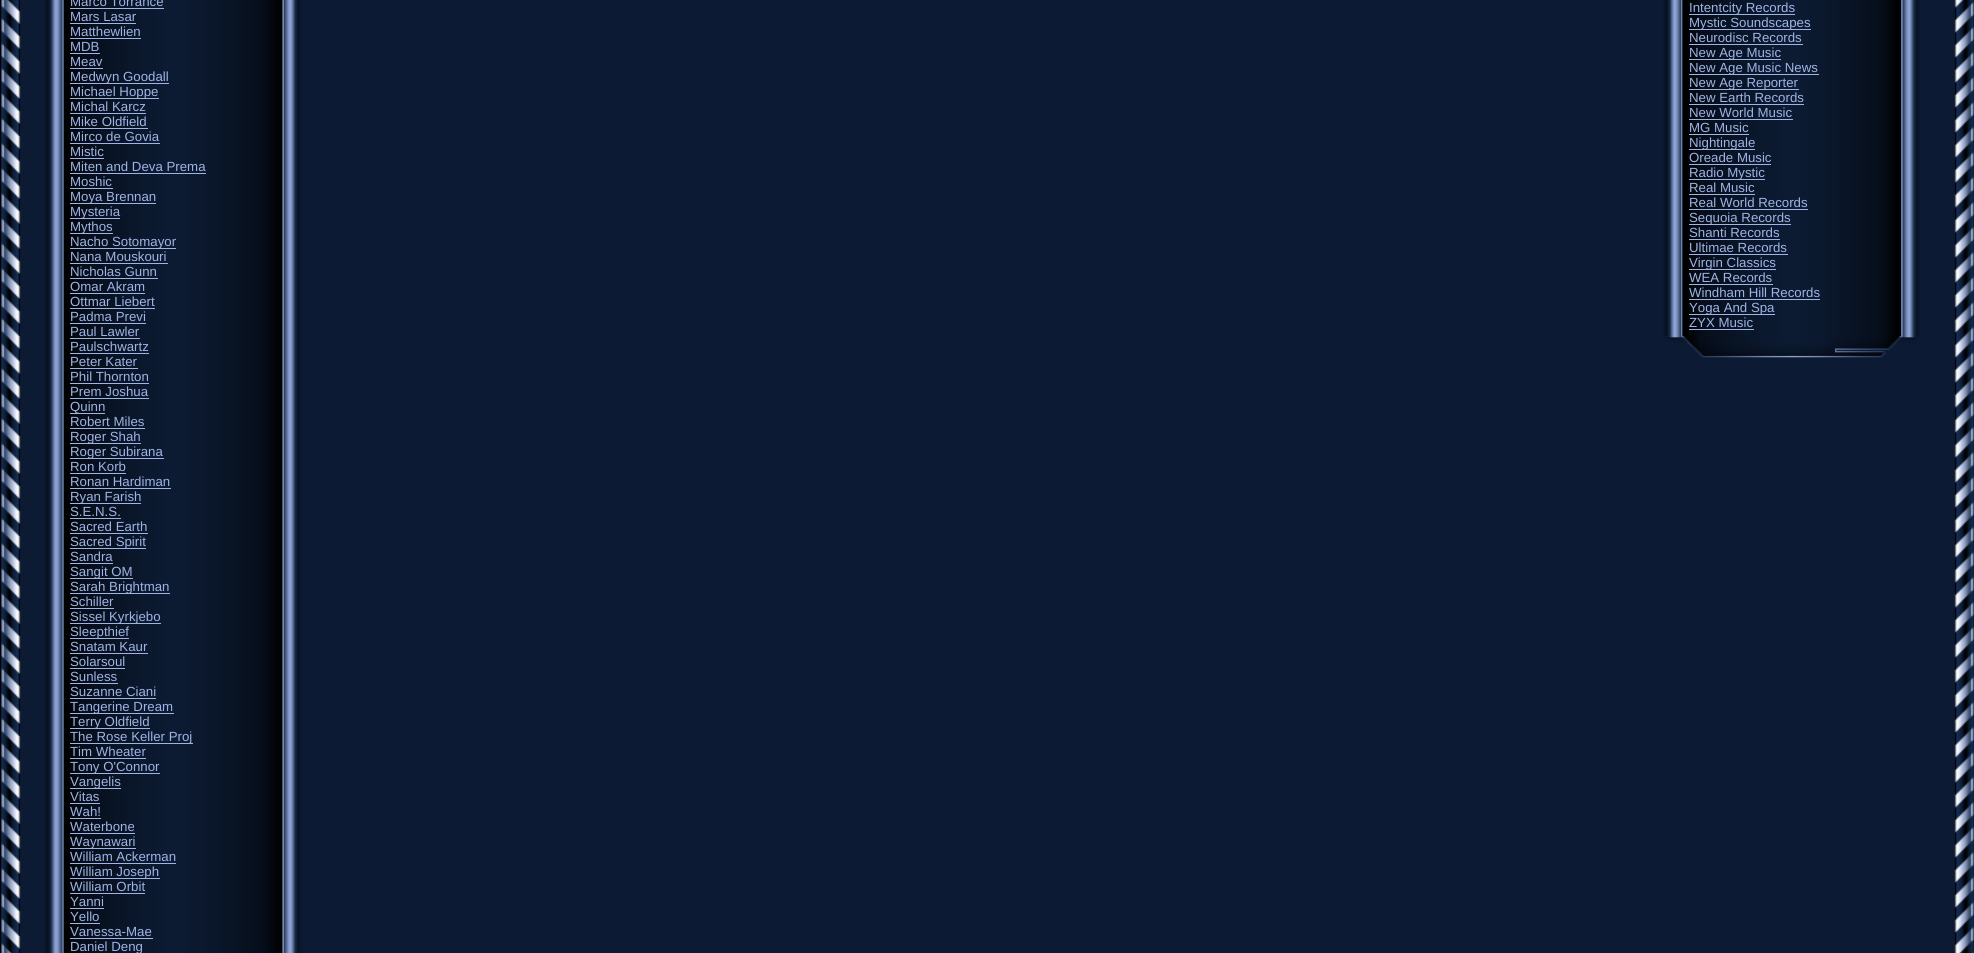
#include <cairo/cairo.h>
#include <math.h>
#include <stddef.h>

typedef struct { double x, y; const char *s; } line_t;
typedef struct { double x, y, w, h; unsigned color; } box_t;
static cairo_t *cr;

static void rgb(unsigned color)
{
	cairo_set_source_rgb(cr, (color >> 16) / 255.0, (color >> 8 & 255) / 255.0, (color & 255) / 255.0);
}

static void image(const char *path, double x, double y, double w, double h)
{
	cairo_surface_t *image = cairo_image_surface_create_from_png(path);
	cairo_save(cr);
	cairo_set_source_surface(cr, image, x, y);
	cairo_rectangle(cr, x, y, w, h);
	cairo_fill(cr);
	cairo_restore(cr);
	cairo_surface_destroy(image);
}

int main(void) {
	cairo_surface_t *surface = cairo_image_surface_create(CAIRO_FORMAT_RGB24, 1974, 953);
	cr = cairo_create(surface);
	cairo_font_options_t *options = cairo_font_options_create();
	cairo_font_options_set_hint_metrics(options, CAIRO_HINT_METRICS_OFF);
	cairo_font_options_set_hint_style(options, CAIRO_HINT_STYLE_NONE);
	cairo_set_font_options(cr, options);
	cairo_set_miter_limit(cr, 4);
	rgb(0x0c1b33);
	cairo_paint(cr);
	image("img/1.png", 0, 0, 21, 953);
	image("img/2.png", 44, 0, 20, 953);
	image("img/3.png", 63, 0, 220, 953);
	{
		static const box_t items[] = {
			{70, 8, 94, 1, 0x9fb4e5},
			{70, 23, 66, 1, 0x9fb4e5},
			{70, 38, 71, 1, 0x9fb4e5},
			{70, 53, 30, 1, 0x9fb4e5},
			{70, 68, 33, 1, 0x9fb4e5},
			{70, 83, 99, 1, 0x9fb4e5},
			{70, 98, 89, 1, 0x9fb4e5},
			{70, 113, 76, 1, 0x9fb4e5},
			{70, 128, 78, 1, 0x9fb4e5},
			{70, 143, 90, 1, 0x9fb4e5},
			{70, 158, 34, 1, 0x9fb4e5},
			{70, 173, 136, 1, 0x9fb4e5},
			{70, 188, 43, 1, 0x9fb4e5},
			{70, 203, 86, 1, 0x9fb4e5},
			{70, 218, 50, 1, 0x9fb4e5},
			{70, 233, 43, 1, 0x9fb4e5},
			{70, 248, 106, 1, 0x9fb4e5},
			{70, 263, 98, 1, 0x9fb4e5},
			{70, 278, 88, 1, 0x9fb4e5},
			{70, 293, 75, 1, 0x9fb4e5},
			{70, 308, 85, 1, 0x9fb4e5},
			{70, 323, 76, 1, 0x9fb4e5},
			{70, 338, 70, 1, 0x9fb4e5},
			{70, 353, 79, 1, 0x9fb4e5},
			{70, 368, 68, 1, 0x9fb4e5},
			{70, 383, 79, 1, 0x9fb4e5},
			{70, 398, 79, 1, 0x9fb4e5},
			{70, 413, 35, 1, 0x9fb4e5},
			{70, 428, 75, 1, 0x9fb4e5},
			{70, 443, 71, 1, 0x9fb4e5},
			{70, 458, 94, 1, 0x9fb4e5},
			{70, 473, 56, 1, 0x9fb4e5},
			{70, 488, 101, 1, 0x9fb4e5},
			{70, 503, 71, 1, 0x9fb4e5},
			{70, 518, 51, 1, 0x9fb4e5},
			{70, 533, 78, 1, 0x9fb4e5},
			{70, 548, 76, 1, 0x9fb4e5},
			{70, 563, 43, 1, 0x9fb4e5},
			{70, 578, 63, 1, 0x9fb4e5},
			{70, 593, 100, 1, 0x9fb4e5},
			{70, 608, 44, 1, 0x9fb4e5},
			{70, 623, 91, 1, 0x9fb4e5},
			{70, 638, 59, 1, 0x9fb4e5},
			{70, 653, 78, 1, 0x9fb4e5},
			{70, 668, 55, 1, 0x9fb4e5},
			{70, 683, 48, 1, 0x9fb4e5},
			{70, 698, 86, 1, 0x9fb4e5},
			{70, 713, 104, 1, 0x9fb4e5},
			{70, 728, 80, 1, 0x9fb4e5},
			{70, 743, 123, 1, 0x9fb4e5},
			{70, 758, 76, 1, 0x9fb4e5},
			{70, 773, 90, 1, 0x9fb4e5},
			{70, 788, 51, 1, 0x9fb4e5},
			{70, 803, 30, 1, 0x9fb4e5},
			{70, 818, 31, 1, 0x9fb4e5},
			{70, 833, 65, 1, 0x9fb4e5},
			{70, 848, 66, 1, 0x9fb4e5},
			{70, 863, 106, 1, 0x9fb4e5},
			{70, 878, 90, 1, 0x9fb4e5},
			{70, 893, 75, 1, 0x9fb4e5},
			{70, 908, 34, 1, 0x9fb4e5},
			{70, 923, 30, 1, 0x9fb4e5},
			{70, 938, 83, 1, 0x9fb4e5},
		};
		for (size_t i = 0; i < sizeof items / sizeof *items; i++) {
			rgb(items[i].color);
			cairo_rectangle(cr, items[i].x, items[i].y, items[i].w, items[i].h);
			cairo_fill(cr);
		}
	}
	image("img/4.png", 282, 0, 19, 953);
	image("img/5.png", 1663, 0, 20, 336);
	image("img/6.png", 1682, 0, 220, 336);
	{
		static const box_t items[] = {
			{1689, 14, 106, 1, 0x9fb4e5},
			{1689, 29, 122, 1, 0x9fb4e5},
			{1689, 44, 114, 1, 0x9fb4e5},
			{1689, 59, 92, 1, 0x9fb4e5},
			{1689, 74, 130, 1, 0x9fb4e5},
			{1689, 89, 110, 1, 0x9fb4e5},
			{1689, 104, 115, 1, 0x9fb4e5},
			{1689, 119, 104, 1, 0x9fb4e5},
			{1689, 134, 60, 1, 0x9fb4e5},
			{1689, 149, 66, 1, 0x9fb4e5},
			{1689, 164, 82, 1, 0x9fb4e5},
			{1689, 179, 76, 1, 0x9fb4e5},
			{1689, 194, 66, 1, 0x9fb4e5},
			{1689, 209, 119, 1, 0x9fb4e5},
			{1689, 224, 102, 1, 0x9fb4e5},
			{1689, 239, 91, 1, 0x9fb4e5},
			{1689, 254, 99, 1, 0x9fb4e5},
			{1689, 269, 87, 1, 0x9fb4e5},
			{1689, 284, 84, 1, 0x9fb4e5},
			{1689, 299, 131, 1, 0x9fb4e5},
			{1689, 314, 86, 1, 0x9fb4e5},
			{1689, 329, 65, 1, 0x9fb4e5},
		};
		for (size_t i = 0; i < sizeof items / sizeof *items; i++) {
			rgb(items[i].color);
			cairo_rectangle(cr, items[i].x, items[i].y, items[i].w, items[i].h);
			cairo_fill(cr);
		}
	}
	image("img/7.png", 1901, 0, 19, 336);
	image("img/8.png", 1664, 336, 255, 22);
	image("img/9.png", 1954, 0, 20, 953);
	cairo_select_font_face(cr, "Liberation Sans", CAIRO_FONT_SLANT_NORMAL, CAIRO_FONT_WEIGHT_NORMAL);
	cairo_set_font_size(cr, 13.25);
	{
		static const line_t items[] = {
			{70, 6, "Marco Torrance"},
			{70, 21, "Mars Lasar"},
			{70, 36, "Matthewlien"},
			{70, 51, "MDB"},
			{70, 66, "Meav"},
			{70, 81, "Medwyn Goodall"},
			{70, 96, "Michael Hoppe"},
			{70, 111, "Michal Karcz"},
			{70, 126, "Mike Oldfield"},
			{70, 141, "Mirco de Govia"},
			{70, 156, "Mistic"},
			{70, 171, "Miten and Deva Prema"},
			{70, 186, "Moshic"},
			{70, 201, "Moya Brennan"},
			{70, 216, "Mysteria"},
			{70, 231, "Mythos"},
			{70, 246, "Nacho Sotomayor"},
			{70, 261, "Nana Mouskouri"},
			{70, 276, "Nicholas Gunn"},
			{70, 291, "Omar Akram"},
			{70, 306, "Ottmar Liebert"},
			{70, 321, "Padma Previ"},
			{70, 336, "Paul Lawler"},
			{70, 351, "Paulschwartz"},
			{70, 366, "Peter Kater"},
			{70, 381, "Phil Thornton"},
			{70, 396, "Prem Joshua"},
			{70, 411, "Quinn"},
			{70, 426, "Robert Miles"},
			{70, 441, "Roger Shah"},
			{70, 456, "Roger Subirana"},
			{70, 471, "Ron Korb"},
			{70, 486, "Ronan Hardiman"},
			{70, 501, "Ryan Farish"},
			{70, 516, "S.E.N.S."},
			{70, 531, "Sacred Earth"},
			{70, 546, "Sacred Spirit"},
			{70, 561, "Sandra"},
			{70, 576, "Sangit OM"},
			{70, 591, "Sarah Brightman"},
			{70, 606, "Schiller"},
			{70, 621, "Sissel Kyrkjebo"},
			{70, 636, "Sleepthief"},
			{70, 651, "Snatam Kaur"},
			{70, 666, "Solarsoul"},
			{70, 681, "Sunless"},
			{70, 696, "Suzanne Ciani"},
			{70, 711, "Tangerine Dream"},
			{70, 726, "Terry Oldfield"},
			{70, 741, "The Rose Keller Proj"},
			{70, 756, "Tim Wheater"},
			{70, 771, "Tony O'Connor"},
			{70, 786, "Vangelis"},
			{70, 801, "Vitas"},
			{70, 816, "Wah!"},
			{70, 831, "Waterbone"},
			{70, 846, "Waynawari"},
			{70, 861, "William Ackerman"},
			{70, 876, "William Joseph"},
			{70, 891, "William Orbit"},
			{70, 906, "Yanni"},
			{70, 921, "Yello"},
			{70, 936, "Vanessa-Mae"},
			{70, 951, "Daniel Deng"},
			{1689, 12, "Intentcity Records"},
			{1689, 27, "Mystic Soundscapes"},
			{1689, 42, "Neurodisc Records"},
			{1689, 57, "New Age Music"},
			{1689, 72, "New Age Music News"},
			{1689, 87, "New Age Reporter"},
			{1689, 102, "New Earth Records"},
			{1689, 117, "New World Music"},
			{1689, 132, "MG Music"},
			{1689, 147, "Nightingale"},
			{1689, 162, "Oreade Music"},
			{1689, 177, "Radio Mystic"},
			{1689, 192, "Real Music"},
			{1689, 207, "Real World Records"},
			{1689, 222, "Sequoia Records"},
			{1689, 237, "Shanti Records"},
			{1689, 252, "Ultimae Records"},
			{1689, 267, "Virgin Classics"},
			{1689, 282, "WEA Records"},
			{1689, 297, "Windham Hill Records"},
			{1689, 312, "Yoga And Spa"},
			{1689, 327, "ZYX Music"},
		};
		for (size_t i = 0; i < sizeof items / sizeof *items; i++) {
			cairo_move_to(cr, items[i].x, items[i].y);
			cairo_show_text(cr, items[i].s);
		}
	}
	cairo_surface_write_to_png(surface, "page.png");
	cairo_font_options_destroy(options);
	cairo_destroy(cr);
	cairo_surface_destroy(surface);
	return 0;
}
